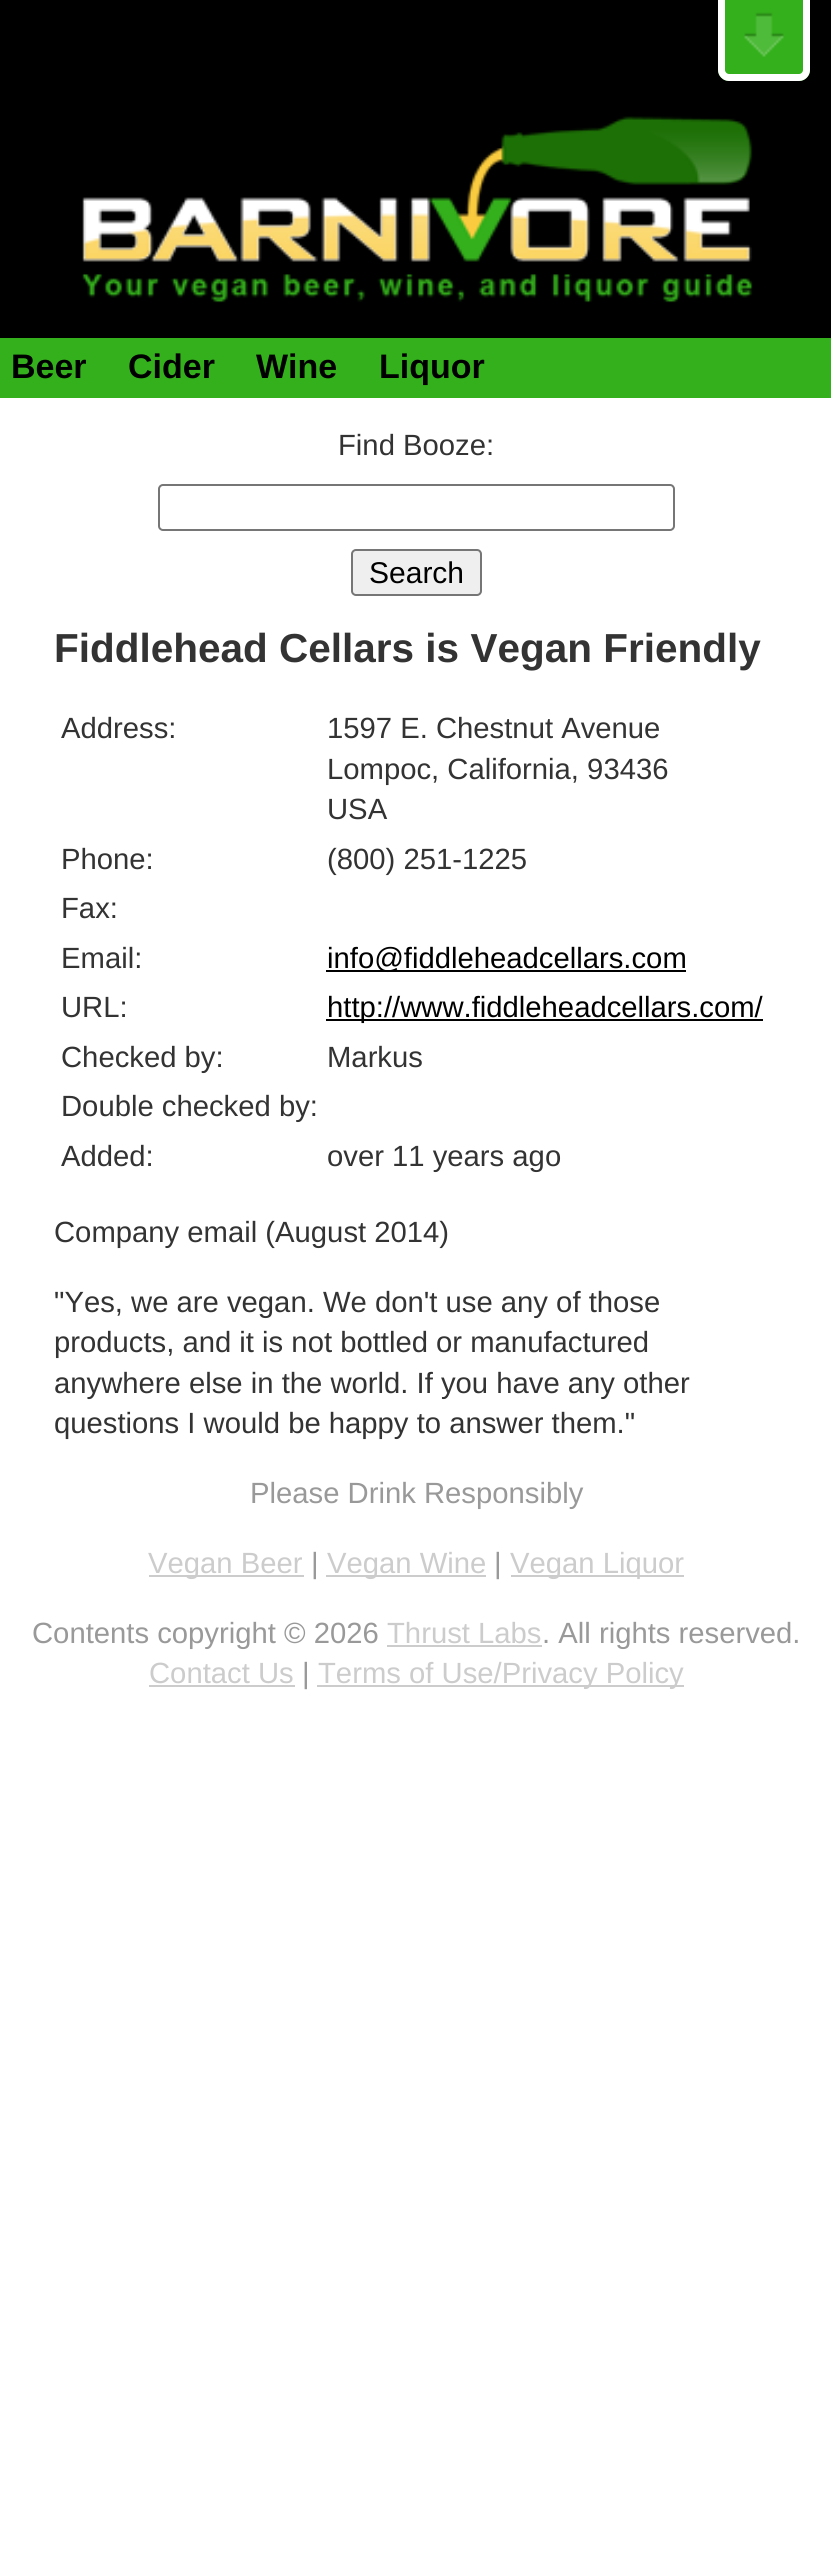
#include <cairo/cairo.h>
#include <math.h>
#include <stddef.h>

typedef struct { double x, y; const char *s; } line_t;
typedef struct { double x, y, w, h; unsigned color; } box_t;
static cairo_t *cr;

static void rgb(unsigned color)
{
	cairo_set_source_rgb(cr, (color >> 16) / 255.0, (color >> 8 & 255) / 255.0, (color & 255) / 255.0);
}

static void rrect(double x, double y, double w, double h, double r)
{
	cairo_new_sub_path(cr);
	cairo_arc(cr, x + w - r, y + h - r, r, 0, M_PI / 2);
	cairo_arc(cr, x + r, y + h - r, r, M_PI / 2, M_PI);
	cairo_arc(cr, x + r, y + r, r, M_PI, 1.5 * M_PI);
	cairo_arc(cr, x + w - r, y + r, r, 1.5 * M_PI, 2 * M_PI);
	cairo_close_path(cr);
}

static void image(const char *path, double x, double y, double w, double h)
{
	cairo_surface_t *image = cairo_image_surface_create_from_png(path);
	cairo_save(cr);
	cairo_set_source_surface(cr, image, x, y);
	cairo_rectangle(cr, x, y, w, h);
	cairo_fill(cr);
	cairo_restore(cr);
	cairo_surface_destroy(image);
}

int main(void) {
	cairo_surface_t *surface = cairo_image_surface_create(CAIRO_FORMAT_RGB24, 831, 2565);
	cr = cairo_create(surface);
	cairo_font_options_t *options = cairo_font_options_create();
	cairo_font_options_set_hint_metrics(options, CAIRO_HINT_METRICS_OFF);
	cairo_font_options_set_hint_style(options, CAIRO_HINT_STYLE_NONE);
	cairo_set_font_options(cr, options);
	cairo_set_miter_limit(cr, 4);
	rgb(0xffffff);
	cairo_paint(cr);
	rgb(0x000000);
	cairo_rectangle(cr, 0, 0, 831, 338);
	cairo_fill(cr);
	rgb(0x34b01c);
	cairo_new_path(cr);
	cairo_move_to(cr, 718, -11);
	cairo_line_to(cr, 810, -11);
	cairo_line_to(cr, 810, 70);
	cairo_curve_to(cr, 810, 76, 805, 81, 799, 81);
	cairo_line_to(cr, 729, 81);
	cairo_curve_to(cr, 723, 81, 718, 76, 718, 70);
	cairo_close_path(cr);
	cairo_fill(cr);
	image("img/1.png", 744, 12, 40, 45);
	cairo_new_path(cr);
	cairo_move_to(cr, 721.5, -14.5);
	cairo_line_to(cr, 806.5, -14.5);
	cairo_line_to(cr, 806.5, 70);
	cairo_curve_to(cr, 806.5, 74, 803, 77.5, 799, 77.5);
	cairo_line_to(cr, 729, 77.5);
	cairo_curve_to(cr, 725, 77.5, 721.5, 74, 721.5, 70);
	cairo_close_path(cr);
	rgb(0xffffff);
	cairo_set_line_width(cr, 7);
	cairo_stroke(cr);
	image("img/2.png", 82, 116, 671, 187);
	rgb(0x34b01c);
	cairo_rectangle(cr, 0, 338, 831, 60);
	cairo_fill(cr);
	rrect(159, 485, 515, 45, 4);
	rgb(0x767676);
	cairo_set_line_width(cr, 2);
	cairo_stroke(cr);
	rgb(0xefefef);
	rrect(352, 550, 129, 45, 4);
	cairo_fill_preserve(cr);
	rgb(0x767676);
	cairo_stroke(cr);
	{
		static const box_t items[] = {
			{326, 970, 360, 2, 0x000000},
			{326, 1019, 437, 2, 0x000000},
			{149, 1575, 155, 2, 0xcccccc},
			{326, 1575, 160, 2, 0xcccccc},
			{511, 1575, 173, 2, 0xcccccc},
			{387, 1645, 155, 2, 0xcccccc},
			{149, 1685, 146, 2, 0xcccccc},
			{317, 1685, 367, 2, 0xcccccc},
		};
		for (size_t i = 0; i < sizeof items / sizeof *items; i++) {
			rgb(items[i].color);
			cairo_rectangle(cr, items[i].x, items[i].y, items[i].w, items[i].h);
			cairo_fill(cr);
		}
	}
	cairo_select_font_face(cr, "Liberation Sans", CAIRO_FONT_SLANT_NORMAL, CAIRO_FONT_WEIGHT_BOLD);
	cairo_set_font_size(cr, 34);
	rgb(0x000000);
	{
		static const line_t items[] = {
			{11, 378, "Beer"},
			{128, 378, "Cider"},
			{256, 378, "Wine"},
			{379, 378, "Liquor"},
		};
		for (size_t i = 0; i < sizeof items / sizeof *items; i++) {
			cairo_move_to(cr, items[i].x, items[i].y);
			cairo_show_text(cr, items[i].s);
		}
	}
	cairo_select_font_face(cr, "Liberation Sans", CAIRO_FONT_SLANT_NORMAL, CAIRO_FONT_WEIGHT_NORMAL);
	cairo_set_font_size(cr, 29.25);
	rgb(0x333333);
	cairo_move_to(cr, 338, 455);
	cairo_show_text(cr, "Find Booze:");
	cairo_set_font_size(cr, 30);
	rgb(0x000000);
	cairo_move_to(cr, 369, 583);
	cairo_show_text(cr, "Search");
	cairo_select_font_face(cr, "Liberation Sans", CAIRO_FONT_SLANT_NORMAL, CAIRO_FONT_WEIGHT_BOLD);
	cairo_set_font_size(cr, 40.5);
	rgb(0x333333);
	cairo_move_to(cr, 54, 662);
	cairo_show_text(cr, "Fiddlehead Cellars is Vegan Friendly");
	cairo_select_font_face(cr, "Liberation Sans", CAIRO_FONT_SLANT_NORMAL, CAIRO_FONT_WEIGHT_NORMAL);
	cairo_set_font_size(cr, 29.25);
	{
		static const line_t items[] = {
			{61, 738, "Address:"},
			{327, 738, "1597 E. Chestnut Avenue"},
			{327, 779, "Lompoc, California, 93436"},
			{327, 819, "USA"},
			{61, 869, "Phone:"},
			{327, 869, "(800) 251-1225"},
			{61, 918, "Fax:"},
			{61, 968, "Email:"},
		};
		for (size_t i = 0; i < sizeof items / sizeof *items; i++) {
			cairo_move_to(cr, items[i].x, items[i].y);
			cairo_show_text(cr, items[i].s);
		}
	}
	rgb(0x000000);
	cairo_move_to(cr, 327, 968);
	cairo_show_text(cr, "info@fiddleheadcellars.com");
	rgb(0x333333);
	cairo_move_to(cr, 61, 1017);
	cairo_show_text(cr, "URL:");
	rgb(0x000000);
	cairo_move_to(cr, 327, 1017);
	cairo_show_text(cr, "http://www.fiddleheadcellars.com/");
	rgb(0x333333);
	{
		static const line_t items[] = {
			{61, 1067, "Checked by:"},
			{327, 1067, "Markus"},
			{61, 1116, "Double checked by:"},
			{61, 1166, "Added:"},
			{327, 1166, "over 11 years ago"},
			{54, 1242, "Company email (August 2014)"},
			{54, 1312, "\"Yes, we are vegan. We don't use any of those"},
			{54, 1352, "products, and it is not bottled or manufactured"},
			{54, 1393, "anywhere else in the world. If you have any other"},
			{54, 1433, "questions I would be happy to answer them.\""},
		};
		for (size_t i = 0; i < sizeof items / sizeof *items; i++) {
			cairo_move_to(cr, items[i].x, items[i].y);
			cairo_show_text(cr, items[i].s);
		}
	}
	rgb(0x999999);
	cairo_move_to(cr, 250, 1503);
	cairo_show_text(cr, "Please Drink Responsibly");
	rgb(0xcccccc);
	cairo_move_to(cr, 148, 1573);
	cairo_show_text(cr, "Vegan Beer");
	rgb(0x999999);
	cairo_move_to(cr, 311, 1573);
	cairo_show_text(cr, "|");
	rgb(0xcccccc);
	cairo_move_to(cr, 327, 1573);
	cairo_show_text(cr, "Vegan Wine");
	rgb(0x999999);
	cairo_move_to(cr, 494, 1573);
	cairo_show_text(cr, "|");
	rgb(0xcccccc);
	cairo_move_to(cr, 510, 1573);
	cairo_show_text(cr, "Vegan Liquor");
	rgb(0x999999);
	cairo_move_to(cr, 32, 1643);
	cairo_show_text(cr, "Contents copyright © 2026");
	rgb(0xcccccc);
	cairo_move_to(cr, 387, 1643);
	cairo_show_text(cr, "Thrust Labs");
	rgb(0x999999);
	cairo_move_to(cr, 542, 1643);
	cairo_show_text(cr, ". All rights reserved.");
	rgb(0xcccccc);
	cairo_move_to(cr, 149, 1683);
	cairo_show_text(cr, "Contact Us");
	rgb(0x999999);
	cairo_move_to(cr, 302, 1683);
	cairo_show_text(cr, "|");
	rgb(0xcccccc);
	cairo_move_to(cr, 318, 1683);
	cairo_show_text(cr, "Terms of Use/Privacy Policy");
	cairo_surface_write_to_png(surface, "page.png");
	cairo_font_options_destroy(options);
	cairo_destroy(cr);
	cairo_surface_destroy(surface);
	return 0;
}
